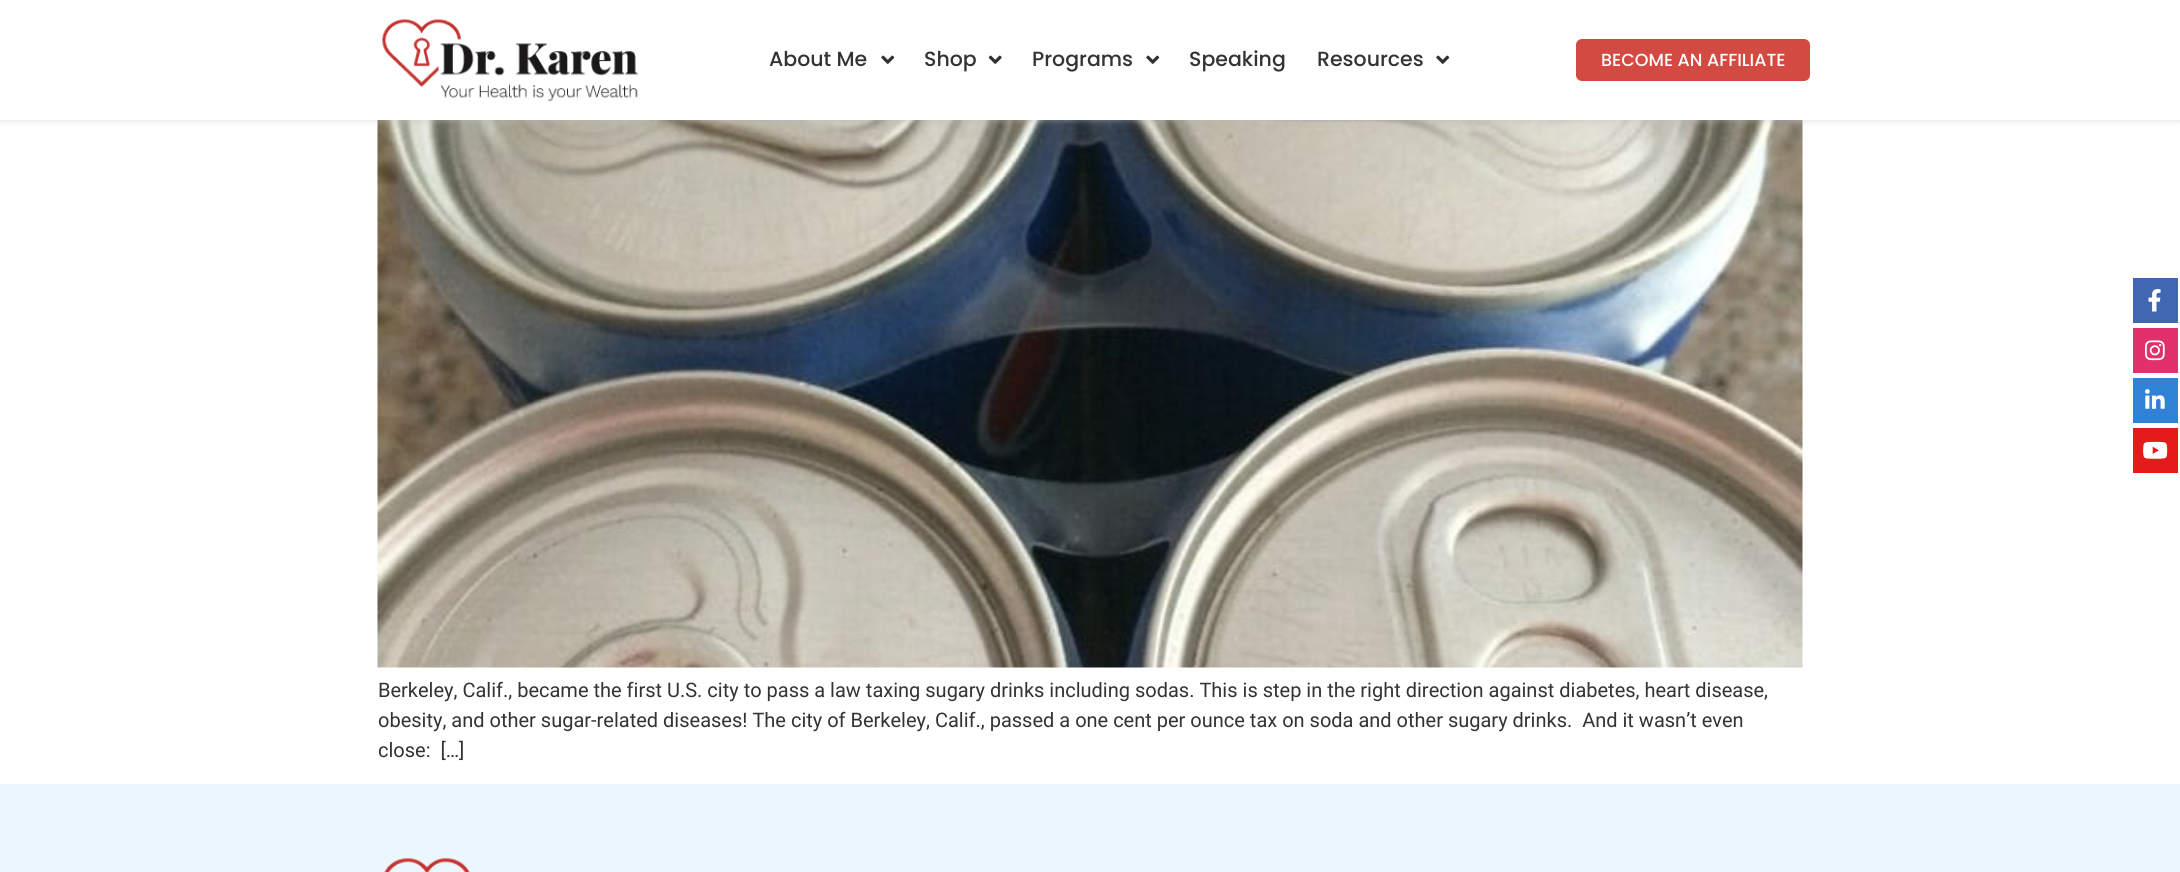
#include <cairo/cairo.h>
#include <math.h>
#include <stddef.h>

typedef struct { double x, y; const char *s; } line_t;
static cairo_t *cr;

static void rgb(unsigned color)
{
	cairo_set_source_rgb(cr, (color >> 16) / 255.0, (color >> 8 & 255) / 255.0, (color & 255) / 255.0);
}

static void rrect(double x, double y, double w, double h, double r)
{
	cairo_new_sub_path(cr);
	cairo_arc(cr, x + w - r, y + h - r, r, 0, M_PI / 2);
	cairo_arc(cr, x + r, y + h - r, r, M_PI / 2, M_PI);
	cairo_arc(cr, x + r, y + r, r, M_PI, 1.5 * M_PI);
	cairo_arc(cr, x + w - r, y + r, r, 1.5 * M_PI, 2 * M_PI);
	cairo_close_path(cr);
}

static void soft_shadow(double x, double y, double w, double h, double r, double blur, double alpha)
{
	cairo_push_group_with_content(cr, CAIRO_CONTENT_ALPHA);
	cairo_set_operator(cr, CAIRO_OPERATOR_SOURCE);
	for (int i = 15; i >= -15 && fmin(w, h) + blur * i / 3 > 0; i -= 2) {
		double e = blur * i / 6;
		cairo_set_source_rgba(cr, 0, 0, 0, alpha * erfc((i - 1) / 8.5) / 2);
		rrect(x - e, y - e, w + 2 * e, h + 2 * e, fmax(0, fmin(r + e + blur * .6, fmin(w, h) / 2 + e)));
		cairo_fill(cr);
	}
	cairo_pattern_t *soft = cairo_pop_group(cr);
	cairo_mask(cr, soft);
	cairo_pattern_destroy(soft);
}

static void image(const char *path, double x, double y, double w, double h)
{
	cairo_surface_t *image = cairo_image_surface_create_from_png(path);
	cairo_save(cr);
	cairo_set_source_surface(cr, image, x, y);
	cairo_rectangle(cr, x, y, w, h);
	cairo_fill(cr);
	cairo_restore(cr);
	cairo_surface_destroy(image);
}

int main(void) {
	cairo_surface_t *surface = cairo_image_surface_create(CAIRO_FORMAT_RGB24, 2180, 872);
	cr = cairo_create(surface);
	cairo_font_options_t *options = cairo_font_options_create();
	cairo_font_options_set_hint_metrics(options, CAIRO_HINT_METRICS_OFF);
	cairo_font_options_set_hint_style(options, CAIRO_HINT_STYLE_NONE);
	cairo_set_font_options(cr, options);
	cairo_set_miter_limit(cr, 4);
	rgb(0xffffff);
	cairo_paint(cr);
	image("img/8.png", 377, 120, 1426, 548);
	rgb(0xbebebe);
	soft_shadow(0, 1, 2180, 120, 0, 3, 0.46);
	rgb(0xffffff);
	cairo_rectangle(cr, 0, 0, 2180, 120);
	cairo_fill(cr);
	image("img/1.png", 382, 19, 256, 83);
	image("img/2.png", 881, 55, 14, 9);
	image("img/3.png", 988, 55, 14, 9);
	image("img/2.png", 1146, 55, 14, 9);
	image("img/2.png", 1436, 55, 14, 9);
	rgb(0xd34a42);
	rrect(1576, 39, 234, 42, 6);
	cairo_fill(cr);
	rgb(0x4267b2);
	cairo_rectangle(cr, 2133, 278, 45, 45);
	cairo_fill(cr);
	image("img/4.png", 2148, 289, 13, 23);
	rgb(0xe1306c);
	cairo_rectangle(cr, 2133, 328, 45, 45);
	cairo_fill(cr);
	image("img/5.png", 2145, 340, 20, 21);
	rgb(0x2f82d6);
	cairo_rectangle(cr, 2133, 378, 45, 45);
	cairo_fill(cr);
	image("img/6.png", 2145, 389, 20, 20);
	rgb(0xe51b1b);
	cairo_rectangle(cr, 2133, 428, 45, 45);
	cairo_fill(cr);
	image("img/7.png", 2143, 441, 25, 18);
	rgb(0xecf6ff);
	cairo_rectangle(cr, 0, 784, 2180, 88);
	cairo_fill(cr);
	image("img/9.png", 384, 858, 86, 14);
	cairo_select_font_face(cr, "Poppins Medium", CAIRO_FONT_SLANT_NORMAL, CAIRO_FONT_WEIGHT_NORMAL);
	cairo_set_font_size(cr, 20.5);
	rgb(0x333333);
	{
		static const line_t items[] = {
			{769, 66, "About Me"},
			{924, 66, "Shop"},
			{1032, 66, "Programs"},
			{1189, 66, "Speaking"},
			{1317, 66, "Resources"},
		};
		for (size_t i = 0; i < sizeof items / sizeof *items; i++) {
			cairo_move_to(cr, items[i].x, items[i].y);
			cairo_show_text(cr, items[i].s);
		}
	}
	cairo_set_font_size(cr, 17.5);
	rgb(0xffffff);
	cairo_move_to(cr, 1601, 66);
	cairo_show_text(cr, "BECOME AN AFFILIATE");
	cairo_select_font_face(cr, "Roboto", CAIRO_FONT_SLANT_NORMAL, CAIRO_FONT_WEIGHT_NORMAL);
	cairo_set_font_size(cr, 20);
	rgb(0x333333);
	{
		static const line_t items[] = {
			{378, 697, "Berkeley, Calif., became the first U.S. city to pass a law taxing sugary drinks including sodas. This is step in the right direction against diabetes, heart disease,"},
			{378, 727, "obesity, and other sugar-related diseases! The city of Berkeley, Calif., passed a one cent per ounce tax on soda and other sugary drinks.  And it wasn’t even"},
			{378, 757, "close:  […]"},
		};
		for (size_t i = 0; i < sizeof items / sizeof *items; i++) {
			cairo_move_to(cr, items[i].x, items[i].y);
			cairo_show_text(cr, items[i].s);
		}
	}
	cairo_surface_write_to_png(surface, "page.png");
	cairo_font_options_destroy(options);
	cairo_destroy(cr);
	cairo_surface_destroy(surface);
	return 0;
}
